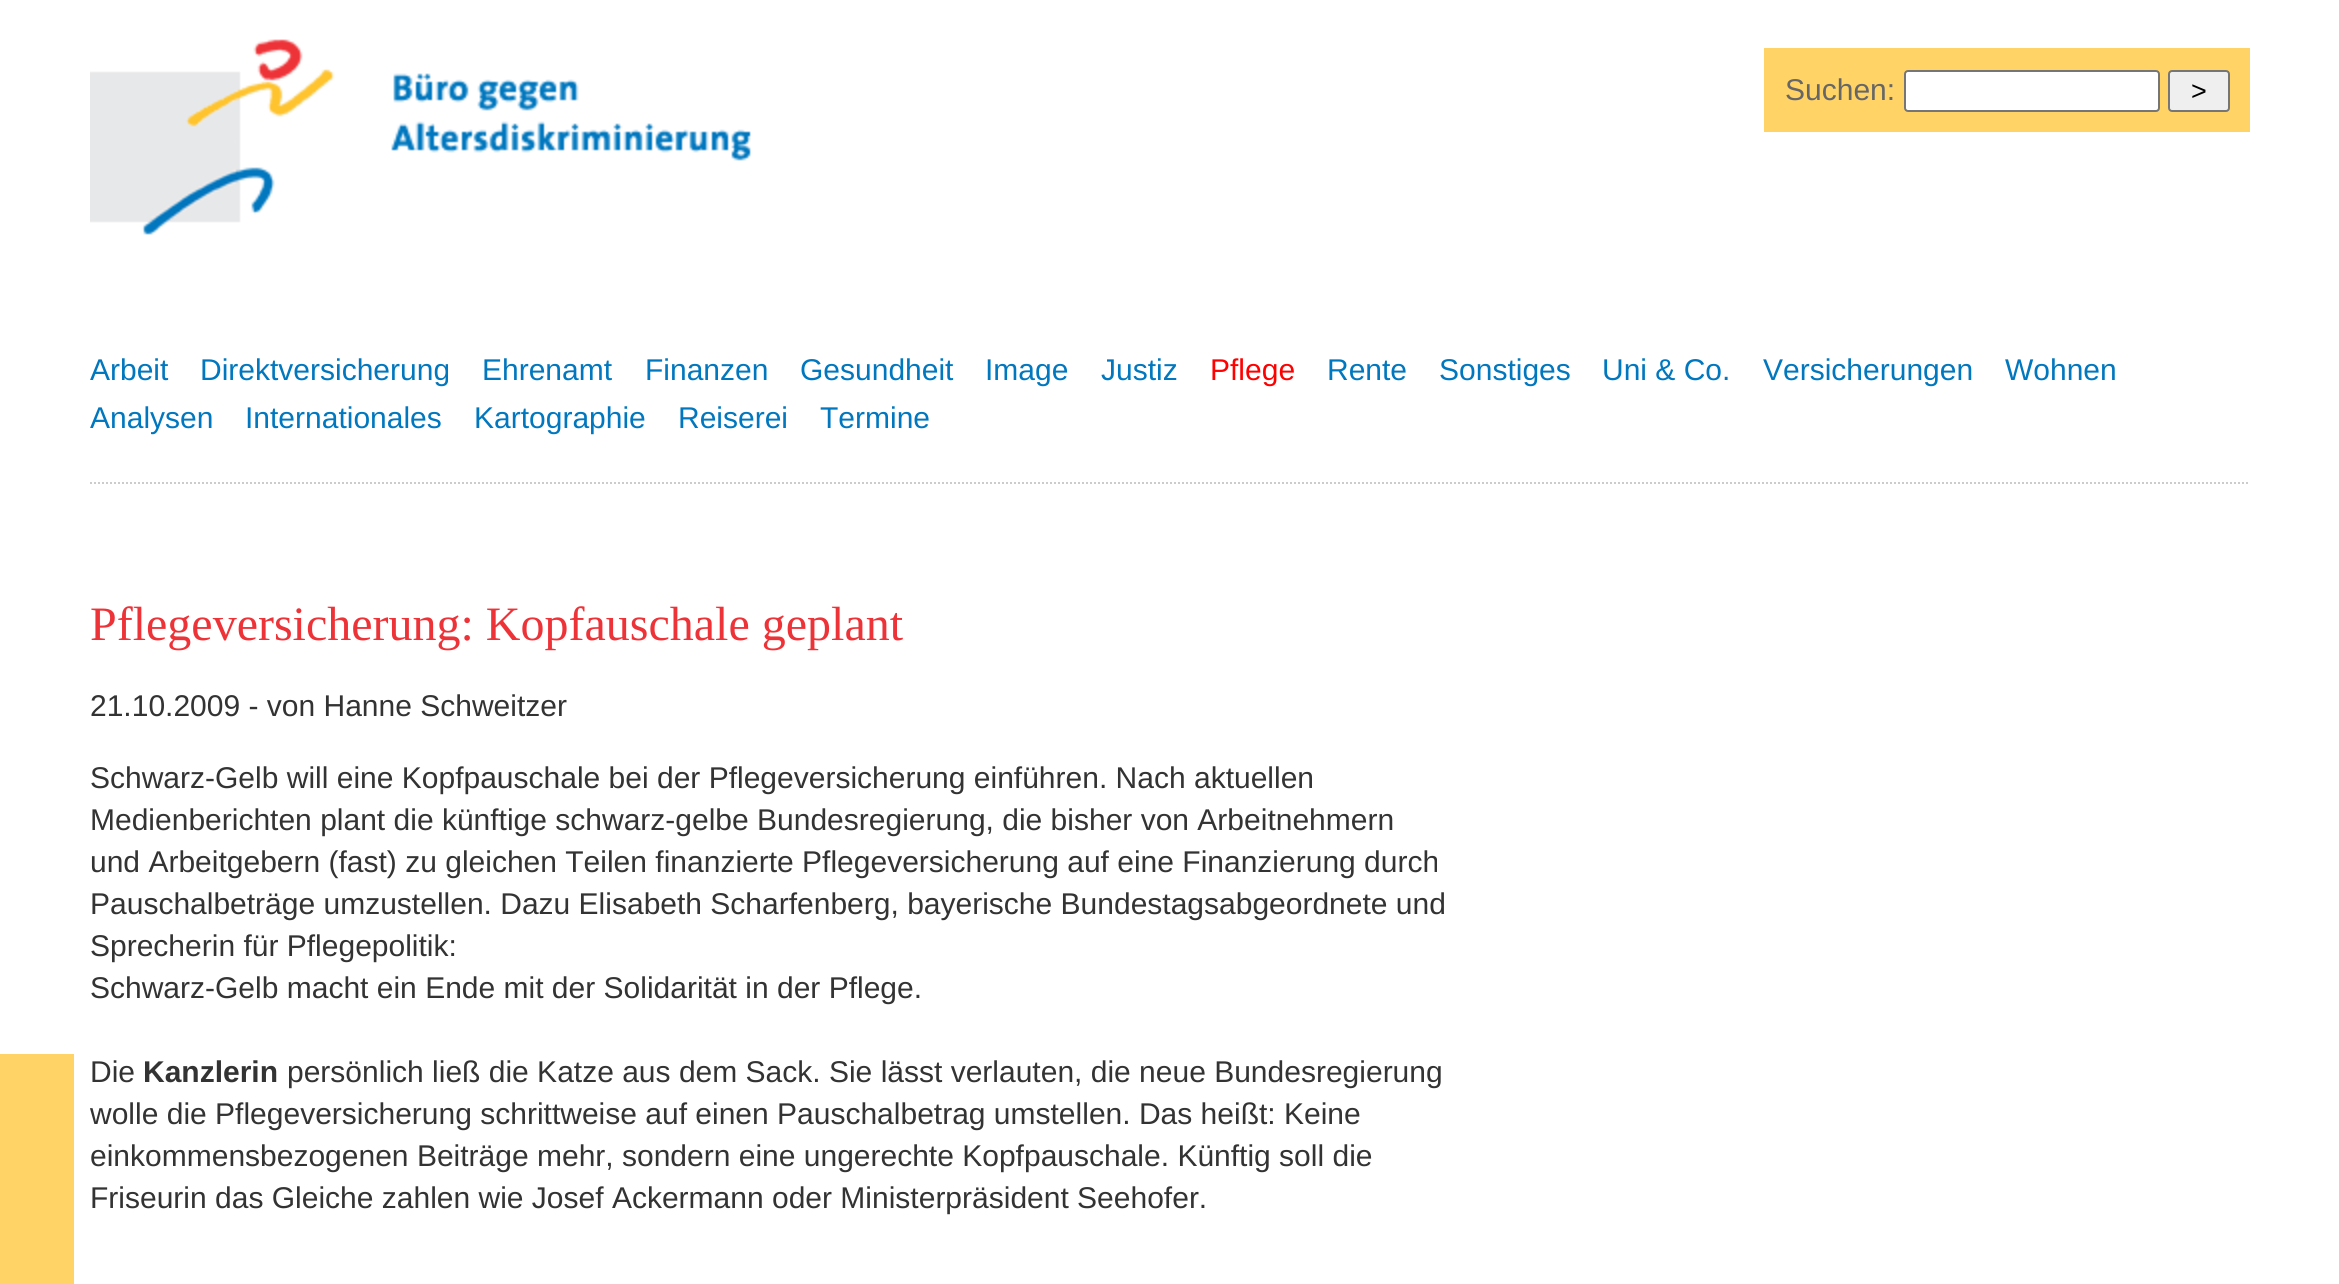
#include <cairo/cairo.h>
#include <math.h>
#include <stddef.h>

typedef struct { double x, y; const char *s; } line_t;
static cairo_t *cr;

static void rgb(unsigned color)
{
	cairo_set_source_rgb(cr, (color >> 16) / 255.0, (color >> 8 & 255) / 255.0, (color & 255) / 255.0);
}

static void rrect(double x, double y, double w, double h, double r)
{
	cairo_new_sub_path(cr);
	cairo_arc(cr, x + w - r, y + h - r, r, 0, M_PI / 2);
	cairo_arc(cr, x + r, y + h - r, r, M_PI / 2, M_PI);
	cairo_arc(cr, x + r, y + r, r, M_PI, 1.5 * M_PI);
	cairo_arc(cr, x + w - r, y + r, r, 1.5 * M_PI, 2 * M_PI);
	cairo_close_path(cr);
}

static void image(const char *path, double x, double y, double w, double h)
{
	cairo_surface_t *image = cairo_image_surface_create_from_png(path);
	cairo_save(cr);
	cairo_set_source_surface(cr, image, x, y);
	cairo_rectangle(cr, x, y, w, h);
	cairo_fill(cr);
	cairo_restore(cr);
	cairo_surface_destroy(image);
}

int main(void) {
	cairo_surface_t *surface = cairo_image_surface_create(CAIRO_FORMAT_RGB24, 2339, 1284);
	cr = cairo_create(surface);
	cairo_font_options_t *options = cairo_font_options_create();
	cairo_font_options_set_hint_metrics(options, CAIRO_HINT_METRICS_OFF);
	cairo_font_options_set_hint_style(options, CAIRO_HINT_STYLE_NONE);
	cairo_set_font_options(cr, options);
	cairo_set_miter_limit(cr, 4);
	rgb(0xffffff);
	cairo_paint(cr);
	image("img/1.png", 90, 39, 661, 196);
	rgb(0xffd366);
	cairo_rectangle(cr, 1764, 48, 486, 84);
	cairo_fill(cr);
	rgb(0xffffff);
	rrect(1905, 71, 254, 40, 3);
	cairo_fill_preserve(cr);
	rgb(0x767676);
	cairo_stroke(cr);
	rgb(0xefefef);
	rrect(2169, 71, 60, 40, 3);
	cairo_fill_preserve(cr);
	rgb(0x767676);
	cairo_stroke(cr);
	cairo_new_path(cr);
	cairo_move_to(cr, 90, 483);
	cairo_line_to(cr, 2250, 483);
	rgb(0xcccccc);
	cairo_set_dash(cr, (double[]){2, 2}, 2, 0);
	cairo_stroke(cr);
	rgb(0xffd366);
	cairo_rectangle(cr, 0, 1054, 74, 230);
	cairo_fill(cr);
	cairo_select_font_face(cr, "Liberation Sans", CAIRO_FONT_SLANT_NORMAL, CAIRO_FONT_WEIGHT_NORMAL);
	cairo_set_font_size(cr, 30);
	rgb(0x666666);
	cairo_move_to(cr, 1785, 100);
	cairo_show_text(cr, "Suchen:");
	cairo_set_font_size(cr, 27);
	rgb(0x000000);
	cairo_move_to(cr, 2191, 100);
	cairo_show_text(cr, ">");
	cairo_set_font_size(cr, 30);
	rgb(0x0077be);
	{
		static const line_t items[] = {
			{90, 380, "Arbeit"},
			{200, 380, "Direktversicherung"},
			{482, 380, "Ehrenamt"},
			{645, 380, "Finanzen"},
			{800, 380, "Gesundheit"},
			{985, 380, "Image"},
			{1101, 380, "Justiz"},
		};
		for (size_t i = 0; i < sizeof items / sizeof *items; i++) {
			cairo_move_to(cr, items[i].x, items[i].y);
			cairo_show_text(cr, items[i].s);
		}
	}
	rgb(0xff0000);
	cairo_move_to(cr, 1210, 380);
	cairo_show_text(cr, "Pflege");
	rgb(0x0077be);
	{
		static const line_t items[] = {
			{1327, 380, "Rente"},
			{1439, 380, "Sonstiges"},
			{1602, 380, "Uni & Co."},
			{1763, 380, "Versicherungen"},
			{2005, 380, "Wohnen"},
			{90, 428, "Analysen"},
			{245, 428, "Internationales"},
			{474, 428, "Kartographie"},
			{678, 428, "Reiserei"},
			{820, 428, "Termine"},
		};
		for (size_t i = 0; i < sizeof items / sizeof *items; i++) {
			cairo_move_to(cr, items[i].x, items[i].y);
			cairo_show_text(cr, items[i].s);
		}
	}
	cairo_select_font_face(cr, "Liberation Serif", CAIRO_FONT_SLANT_NORMAL, CAIRO_FONT_WEIGHT_NORMAL);
	cairo_set_font_size(cr, 48);
	rgb(0xee3338);
	cairo_move_to(cr, 90, 640);
	cairo_show_text(cr, "Pflegeversicherung: Kopfauschale geplant");
	cairo_select_font_face(cr, "Liberation Sans", CAIRO_FONT_SLANT_NORMAL, CAIRO_FONT_WEIGHT_NORMAL);
	cairo_set_font_size(cr, 30);
	rgb(0x333333);
	{
		static const line_t items[] = {
			{90, 716, "21.10.2009 - von Hanne Schweitzer"},
			{90, 788, "Schwarz-Gelb will eine Kopfpauschale bei der Pflegeversicherung einführen. Nach aktuellen"},
			{90, 830, "Medienberichten plant die künftige schwarz-gelbe Bundesregierung, die bisher von Arbeitnehmern"},
			{90, 872, "und Arbeitgebern (fast) zu gleichen Teilen finanzierte Pflegeversicherung auf eine Finanzierung durch"},
			{90, 914, "Pauschalbeträge umzustellen. Dazu Elisabeth Scharfenberg, bayerische Bundestagsabgeordnete und"},
			{90, 956, "Sprecherin für Pflegepolitik:"},
			{90, 998, "Schwarz-Gelb macht ein Ende mit der Solidarität in der Pflege."},
			{90, 1082, "Die"},
		};
		for (size_t i = 0; i < sizeof items / sizeof *items; i++) {
			cairo_move_to(cr, items[i].x, items[i].y);
			cairo_show_text(cr, items[i].s);
		}
	}
	cairo_select_font_face(cr, "Liberation Sans", CAIRO_FONT_SLANT_NORMAL, CAIRO_FONT_WEIGHT_BOLD);
	cairo_move_to(cr, 143, 1082);
	cairo_show_text(cr, "Kanzlerin");
	cairo_select_font_face(cr, "Liberation Sans", CAIRO_FONT_SLANT_NORMAL, CAIRO_FONT_WEIGHT_NORMAL);
	{
		static const line_t items[] = {
			{287, 1082, "persönlich ließ die Katze aus dem Sack. Sie lässt verlauten, die neue Bundesregierung"},
			{90, 1124, "wolle die Pflegeversicherung schrittweise auf einen Pauschalbetrag umstellen. Das heißt: Keine"},
			{90, 1166, "einkommensbezogenen Beiträge mehr, sondern eine ungerechte Kopfpauschale. Künftig soll die"},
			{90, 1208, "Friseurin das Gleiche zahlen wie Josef Ackermann oder Ministerpräsident Seehofer."},
		};
		for (size_t i = 0; i < sizeof items / sizeof *items; i++) {
			cairo_move_to(cr, items[i].x, items[i].y);
			cairo_show_text(cr, items[i].s);
		}
	}
	cairo_surface_write_to_png(surface, "page.png");
	cairo_font_options_destroy(options);
	cairo_destroy(cr);
	cairo_surface_destroy(surface);
	return 0;
}
